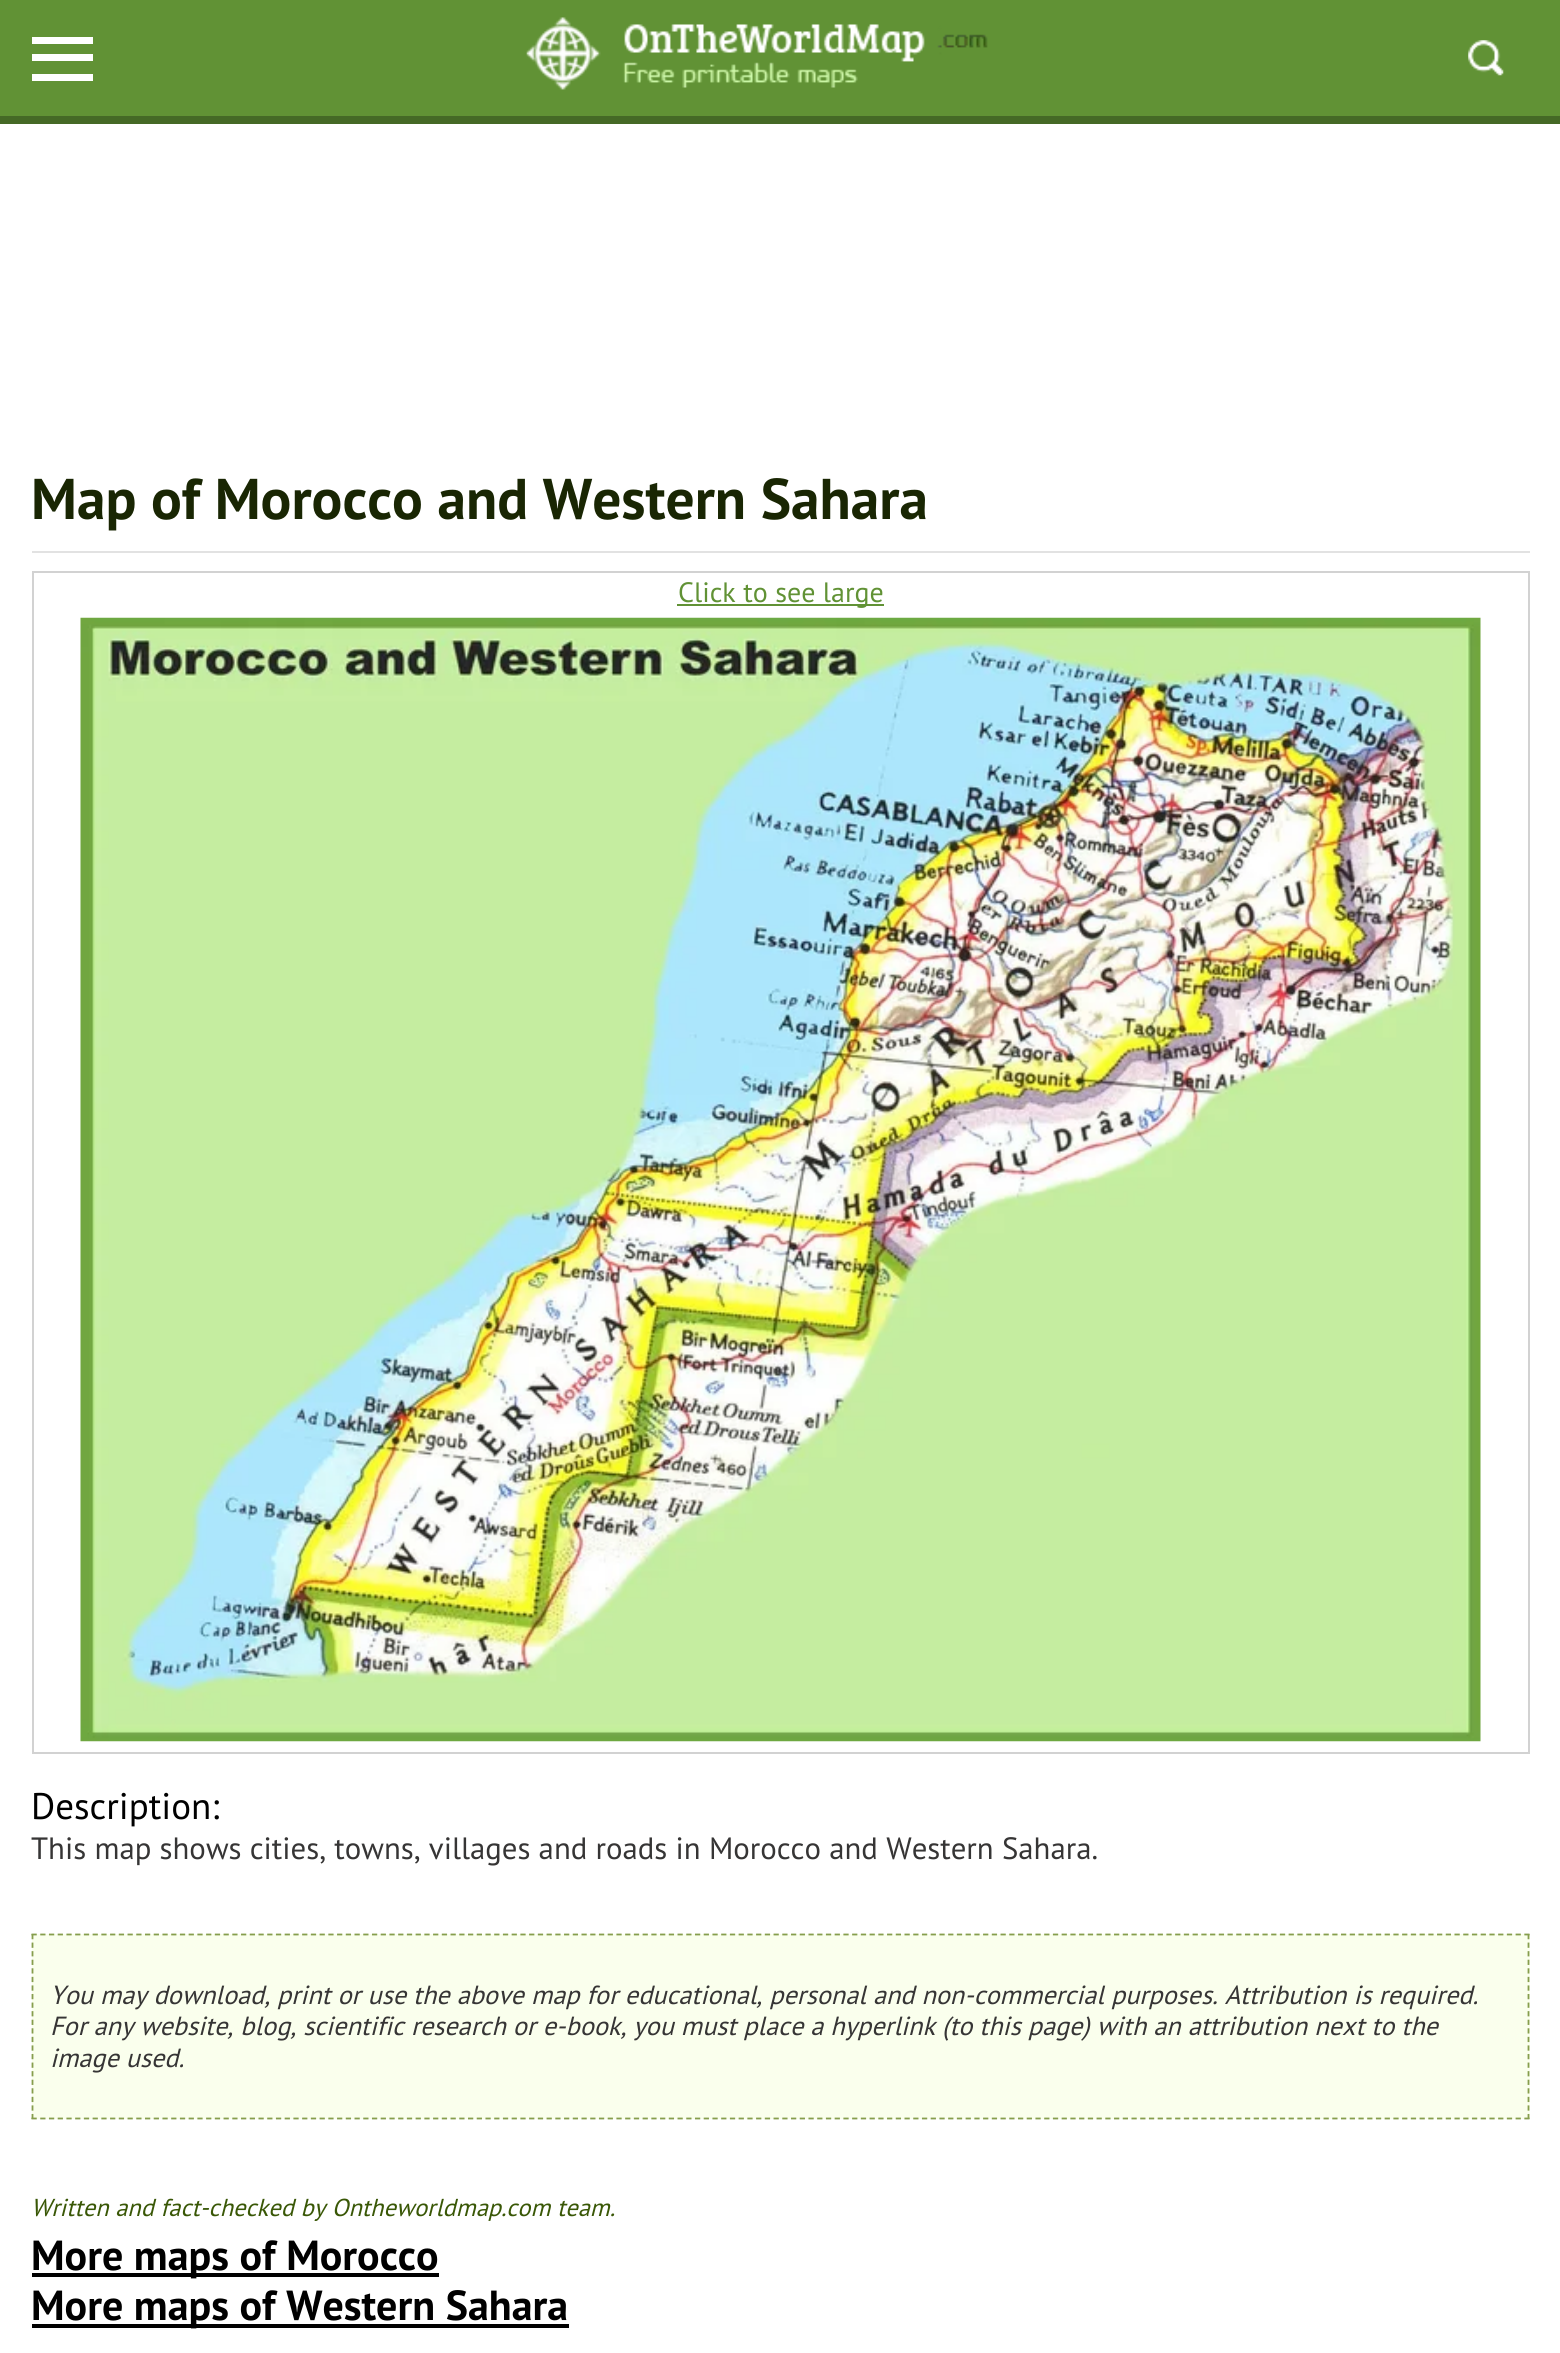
#include <cairo/cairo.h>
#include <math.h>
#include <stddef.h>

typedef struct { double x, y; const char *s; } line_t;
typedef struct { double x, y, w, h; unsigned color; } box_t;
static cairo_t *cr;

static void rgb(unsigned color)
{
	cairo_set_source_rgb(cr, (color >> 16) / 255.0, (color >> 8 & 255) / 255.0, (color & 255) / 255.0);
}

static void image(const char *path, double x, double y, double w, double h)
{
	cairo_surface_t *image = cairo_image_surface_create_from_png(path);
	cairo_save(cr);
	cairo_set_source_surface(cr, image, x, y);
	cairo_rectangle(cr, x, y, w, h);
	cairo_fill(cr);
	cairo_restore(cr);
	cairo_surface_destroy(image);
}

int main(void) {
	cairo_surface_t *surface = cairo_image_surface_create(CAIRO_FORMAT_RGB24, 1560, 2353);
	cr = cairo_create(surface);
	cairo_font_options_t *options = cairo_font_options_create();
	cairo_font_options_set_hint_metrics(options, CAIRO_HINT_METRICS_OFF);
	cairo_font_options_set_hint_style(options, CAIRO_HINT_STYLE_NONE);
	cairo_set_font_options(cr, options);
	cairo_set_miter_limit(cr, 4);
	rgb(0xffffff);
	cairo_paint(cr);
	{
		static const box_t items[] = {
			{0, 0, 1560, 116, 0x619235},
			{0, 116, 1560, 8, 0x456926},
			{32, 37, 61, 7, 0xffffff},
			{32, 54, 61, 7, 0xffffff},
			{32, 74, 61, 7, 0xffffff},
		};
		for (size_t i = 0; i < sizeof items / sizeof *items; i++) {
			rgb(items[i].color);
			cairo_rectangle(cr, items[i].x, items[i].y, items[i].w, items[i].h);
			cairo_fill(cr);
		}
	}
	image("img/1.png", 526, 17, 462, 73);
	image("img/2.png", 1468, 40, 36, 36);
	rgb(0xe2e2e2);
	cairo_rectangle(cr, 32, 551, 1498, 2);
	cairo_fill(cr);
	cairo_rectangle(cr, 33, 572, 1496, 1181);
	rgb(0xd2d2d2);
	cairo_stroke(cr);
	rgb(0x619235);
	cairo_rectangle(cr, 677, 604, 207, 2);
	cairo_fill(cr);
	image("img/3.png", 80, 617, 1401, 1125);
	rgb(0xfaffed);
	cairo_rectangle(cr, 32, 1934, 1498, 185);
	cairo_fill(cr);
	cairo_new_path(cr);
	cairo_move_to(cr, 31.5, 1934.5);
	cairo_line_to(cr, 1529.5, 1934.5);
	rgb(0x869e4d);
	cairo_set_line_width(cr, 1.8);
	cairo_set_dash(cr, (double[]){5.25, 3.48}, 2, 0);
	cairo_stroke(cr);
	cairo_new_path(cr);
	cairo_move_to(cr, 1528.5, 1934);
	cairo_line_to(cr, 1528.5, 2119);
	cairo_set_dash(cr, (double[]){5.25, 3.32}, 2, 0);
	cairo_stroke(cr);
	cairo_new_path(cr);
	cairo_move_to(cr, 31.5, 2118.5);
	cairo_line_to(cr, 1529.5, 2118.5);
	cairo_set_dash(cr, (double[]){5.25, 3.48}, 2, 0);
	cairo_stroke(cr);
	cairo_new_path(cr);
	cairo_move_to(cr, 32.5, 1934);
	cairo_line_to(cr, 32.5, 2119);
	cairo_set_dash(cr, (double[]){5.25, 3.32}, 2, 0);
	cairo_stroke(cr);
	rgb(0x000000);
	cairo_rectangle(cr, 32, 2273, 407, 4);
	cairo_fill(cr);
	cairo_rectangle(cr, 32, 2324, 537, 4);
	cairo_fill(cr);
	cairo_select_font_face(cr, "PT Sans", CAIRO_FONT_SLANT_NORMAL, CAIRO_FONT_WEIGHT_BOLD);
	cairo_set_font_size(cr, 57.4);
	rgb(0x192603);
	cairo_move_to(cr, 31, 519);
	cairo_show_text(cr, "Map of Morocco and Western Sahara");
	cairo_select_font_face(cr, "PT Sans", CAIRO_FONT_SLANT_NORMAL, CAIRO_FONT_WEIGHT_NORMAL);
	cairo_set_font_size(cr, 28);
	rgb(0x619235);
	cairo_move_to(cr, 678, 602);
	cairo_show_text(cr, "Click to see large");
	cairo_set_font_size(cr, 37);
	rgb(0x000000);
	cairo_move_to(cr, 31, 1819);
	cairo_show_text(cr, "Description:");
	cairo_set_font_size(cr, 30.8);
	rgb(0x363535);
	cairo_move_to(cr, 31, 1859);
	cairo_show_text(cr, "This map shows cities, towns, villages and roads in Morocco and Western Sahara.");
	cairo_select_font_face(cr, "PT Sans", CAIRO_FONT_SLANT_ITALIC, CAIRO_FONT_WEIGHT_NORMAL);
	cairo_set_font_size(cr, 26.25);
	{
		static const line_t items[] = {
			{50, 2004, "You may download, print or use the above map for educational, personal and non-commercial purposes. Attribution is required."},
			{50, 2035, "For any website, blog, scientific research or e-book, you must place a hyperlink (to this page) with an attribution next to the"},
			{50, 2067, "image used."},
		};
		for (size_t i = 0; i < sizeof items / sizeof *items; i++) {
			cairo_move_to(cr, items[i].x, items[i].y);
			cairo_show_text(cr, items[i].s);
		}
	}
	cairo_set_font_size(cr, 24.5);
	rgb(0x395706);
	cairo_move_to(cr, 31, 2216);
	cairo_show_text(cr, "Written and fact-checked by Ontheworldmap.com team.");
	cairo_select_font_face(cr, "PT Sans", CAIRO_FONT_SLANT_NORMAL, CAIRO_FONT_WEIGHT_BOLD);
	cairo_set_font_size(cr, 42);
	rgb(0x000000);
	cairo_move_to(cr, 31, 2270);
	cairo_show_text(cr, "More maps of Morocco");
	cairo_move_to(cr, 31, 2320);
	cairo_show_text(cr, "More maps of Western Sahara");
	cairo_surface_write_to_png(surface, "page.png");
	cairo_font_options_destroy(options);
	cairo_destroy(cr);
	cairo_surface_destroy(surface);
	return 0;
}
